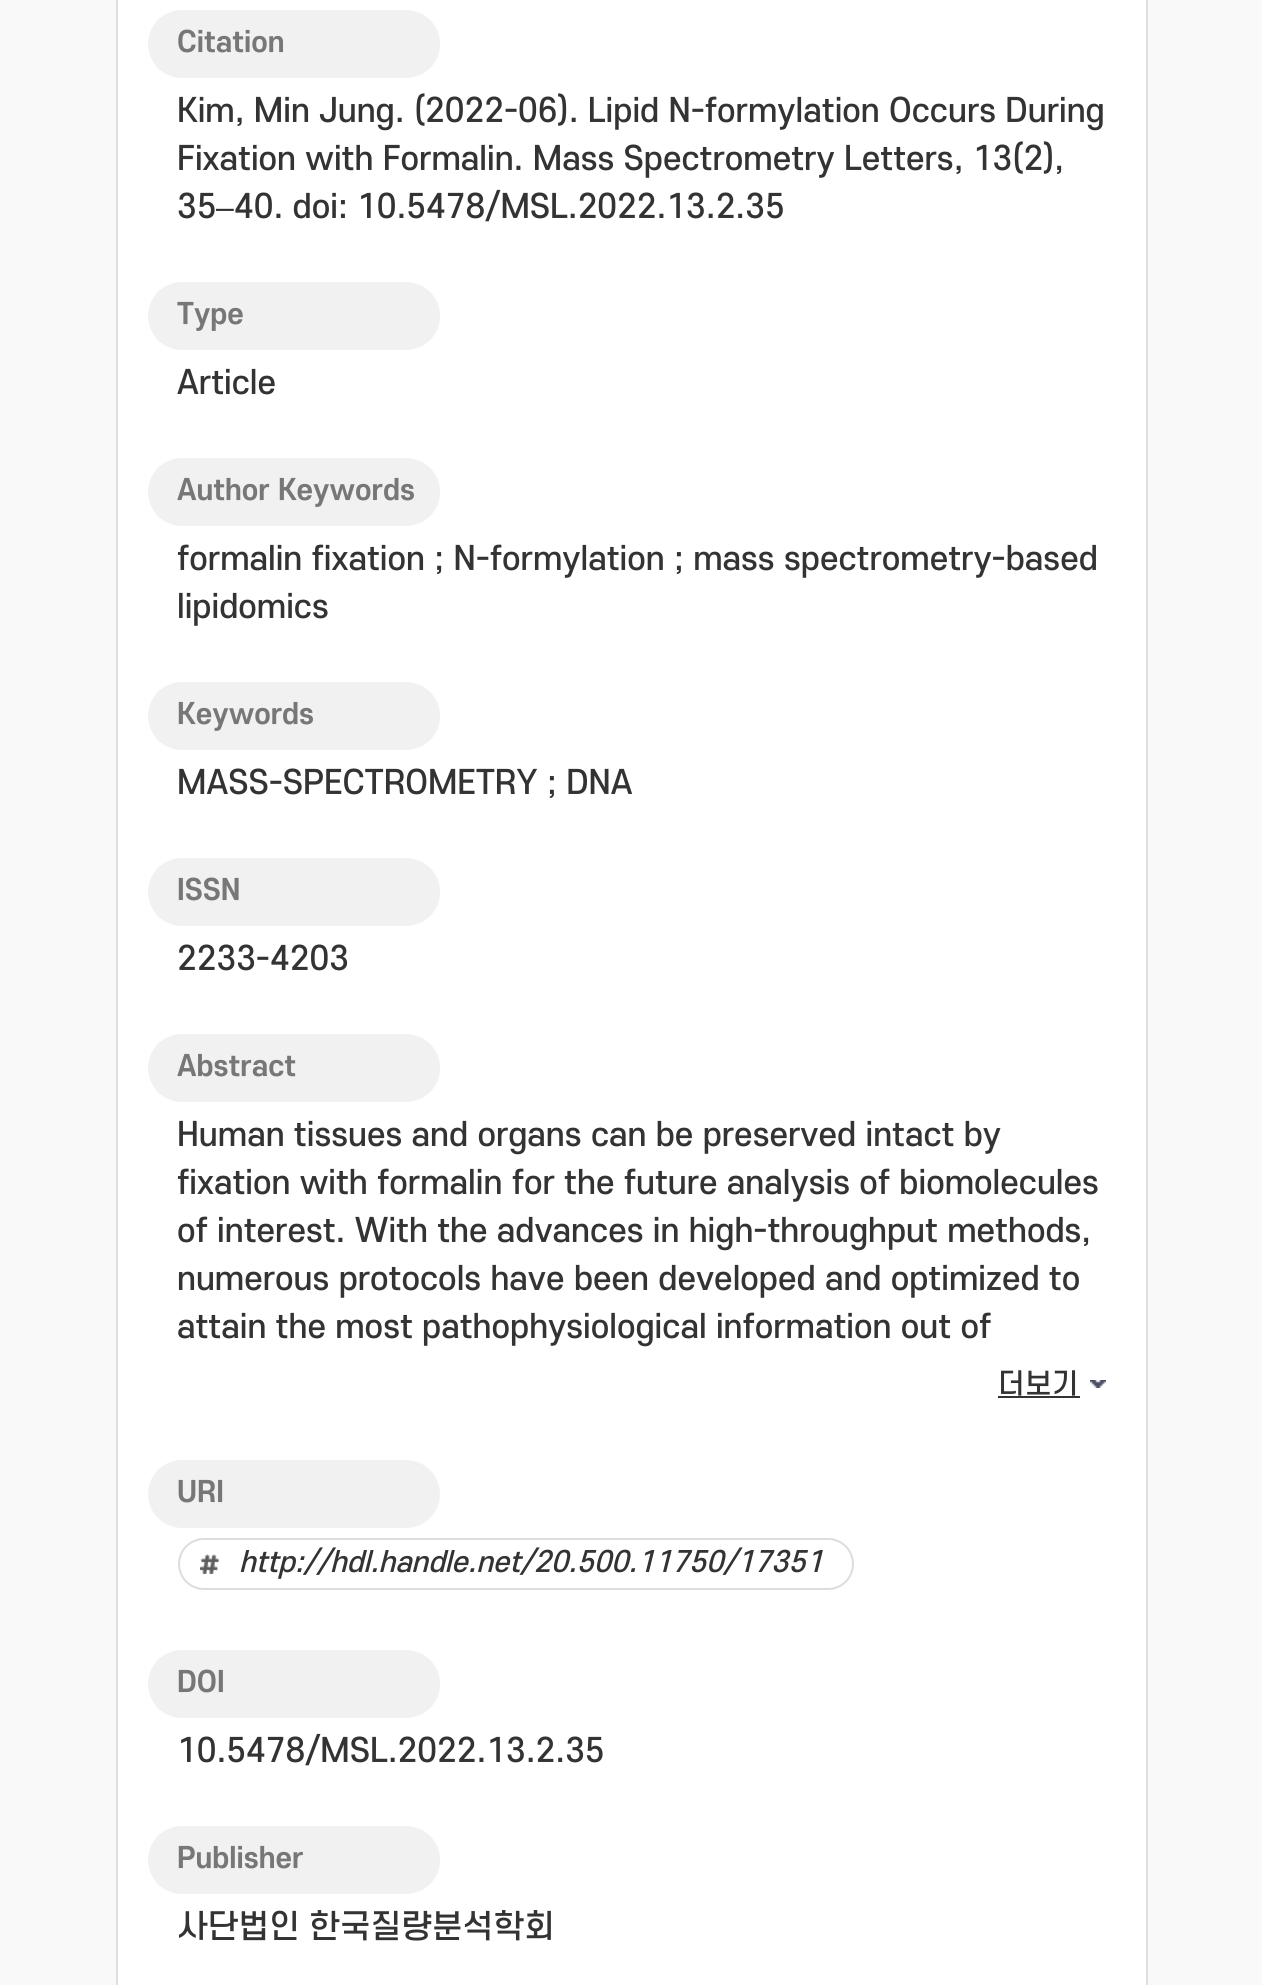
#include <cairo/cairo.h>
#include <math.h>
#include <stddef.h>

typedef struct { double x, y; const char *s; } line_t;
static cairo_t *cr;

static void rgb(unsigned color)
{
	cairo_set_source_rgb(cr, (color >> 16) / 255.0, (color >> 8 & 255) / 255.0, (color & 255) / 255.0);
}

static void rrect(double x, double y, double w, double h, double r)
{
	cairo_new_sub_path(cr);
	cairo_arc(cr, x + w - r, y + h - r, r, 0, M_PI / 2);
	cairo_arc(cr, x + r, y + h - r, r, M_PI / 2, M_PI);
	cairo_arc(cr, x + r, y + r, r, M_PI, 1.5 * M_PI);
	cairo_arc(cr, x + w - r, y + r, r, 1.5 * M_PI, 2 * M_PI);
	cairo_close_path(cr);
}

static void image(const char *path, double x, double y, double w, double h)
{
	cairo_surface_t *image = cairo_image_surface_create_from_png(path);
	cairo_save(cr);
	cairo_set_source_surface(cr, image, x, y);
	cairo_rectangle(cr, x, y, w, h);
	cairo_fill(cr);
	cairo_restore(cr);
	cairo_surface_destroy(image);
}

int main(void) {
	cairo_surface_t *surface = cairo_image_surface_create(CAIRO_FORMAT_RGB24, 1262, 1985);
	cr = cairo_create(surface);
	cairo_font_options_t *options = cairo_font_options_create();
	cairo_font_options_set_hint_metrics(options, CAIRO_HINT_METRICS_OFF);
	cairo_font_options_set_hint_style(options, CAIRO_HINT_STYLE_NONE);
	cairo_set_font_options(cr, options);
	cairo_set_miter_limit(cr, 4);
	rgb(0xf9f9f9);
	cairo_paint(cr);
	rgb(0xffffff);
	cairo_rectangle(cr, 117, -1, 1030, 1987);
	cairo_fill_preserve(cr);
	rgb(0xdfdfdf);
	cairo_stroke(cr);
	rgb(0xf1f1f1);
	rrect(148, 10, 292, 68, 34);
	cairo_fill(cr);
	rrect(148, 282, 292, 68, 34);
	cairo_fill(cr);
	rrect(148, 458, 292, 68, 34);
	cairo_fill(cr);
	rrect(148, 682, 292, 68, 34);
	cairo_fill(cr);
	rrect(148, 858, 292, 68, 34);
	cairo_fill(cr);
	rrect(148, 1034, 292, 68, 34);
	cairo_fill(cr);
	rgb(0x333333);
	cairo_rectangle(cr, 998, 1396, 82, 2);
	cairo_fill(cr);
	image("img/1.png", 1090, 1380, 16, 8);
	rgb(0xf1f1f1);
	rrect(148, 1460, 292, 68, 34);
	cairo_fill(cr);
	image("img/2.png", 200, 1554, 20, 20);
	rrect(179, 1539, 674, 50, 25);
	rgb(0xdddddd);
	cairo_stroke(cr);
	rgb(0xf1f1f1);
	rrect(148, 1650, 292, 68, 34);
	cairo_fill(cr);
	rrect(148, 1826, 292, 68, 34);
	cairo_fill(cr);
	cairo_select_font_face(cr, "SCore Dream", CAIRO_FONT_SLANT_NORMAL, CAIRO_FONT_WEIGHT_BOLD);
	cairo_set_font_size(cr, 28);
	rgb(0x777777);
	cairo_move_to(cr, 177, 52);
	cairo_show_text(cr, "Citation");
	cairo_select_font_face(cr, "SCore Dream Medium", CAIRO_FONT_SLANT_NORMAL, CAIRO_FONT_WEIGHT_NORMAL);
	cairo_set_font_size(cr, 32);
	rgb(0x333333);
	{
		static const line_t items[] = {
			{177, 122, "Kim, Min Jung. (2022-06). Lipid N-formylation Occurs During"},
			{177, 170, "Fixation with Formalin. Mass Spectrometry Letters, 13(2),"},
			{177, 218, "35"},
		};
		for (size_t i = 0; i < sizeof items / sizeof *items; i++) {
			cairo_move_to(cr, items[i].x, items[i].y);
			cairo_show_text(cr, items[i].s);
		}
	}
	cairo_select_font_face(cr, "Liberation Sans", CAIRO_FONT_SLANT_NORMAL, CAIRO_FONT_WEIGHT_NORMAL);
	cairo_move_to(cr, 216, 218);
	cairo_show_text(cr, "–");
	cairo_select_font_face(cr, "SCore Dream Medium", CAIRO_FONT_SLANT_NORMAL, CAIRO_FONT_WEIGHT_NORMAL);
	cairo_move_to(cr, 234, 218);
	cairo_show_text(cr, "40. doi: 10.5478/MSL.2022.13.2.35");
	cairo_select_font_face(cr, "SCore Dream", CAIRO_FONT_SLANT_NORMAL, CAIRO_FONT_WEIGHT_BOLD);
	cairo_set_font_size(cr, 28);
	rgb(0x777777);
	cairo_move_to(cr, 177, 324);
	cairo_show_text(cr, "Type");
	cairo_select_font_face(cr, "SCore Dream Medium", CAIRO_FONT_SLANT_NORMAL, CAIRO_FONT_WEIGHT_NORMAL);
	cairo_set_font_size(cr, 32);
	rgb(0x333333);
	cairo_move_to(cr, 177, 394);
	cairo_show_text(cr, "Article");
	cairo_select_font_face(cr, "SCore Dream", CAIRO_FONT_SLANT_NORMAL, CAIRO_FONT_WEIGHT_BOLD);
	cairo_set_font_size(cr, 28);
	rgb(0x777777);
	cairo_move_to(cr, 177, 500);
	cairo_show_text(cr, "Author Keywords");
	cairo_select_font_face(cr, "SCore Dream Medium", CAIRO_FONT_SLANT_NORMAL, CAIRO_FONT_WEIGHT_NORMAL);
	cairo_set_font_size(cr, 32);
	rgb(0x333333);
	cairo_move_to(cr, 177, 570);
	cairo_show_text(cr, "formalin fixation ; N-formylation ; mass spectrometry-based");
	cairo_move_to(cr, 177, 618);
	cairo_show_text(cr, "lipidomics");
	cairo_select_font_face(cr, "SCore Dream", CAIRO_FONT_SLANT_NORMAL, CAIRO_FONT_WEIGHT_BOLD);
	cairo_set_font_size(cr, 28);
	rgb(0x777777);
	cairo_move_to(cr, 177, 724);
	cairo_show_text(cr, "Keywords");
	cairo_select_font_face(cr, "SCore Dream Medium", CAIRO_FONT_SLANT_NORMAL, CAIRO_FONT_WEIGHT_NORMAL);
	cairo_set_font_size(cr, 32);
	rgb(0x333333);
	cairo_move_to(cr, 177, 794);
	cairo_show_text(cr, "MASS-SPECTROMETRY ; DNA");
	cairo_select_font_face(cr, "SCore Dream", CAIRO_FONT_SLANT_NORMAL, CAIRO_FONT_WEIGHT_BOLD);
	cairo_set_font_size(cr, 28);
	rgb(0x777777);
	cairo_move_to(cr, 177, 900);
	cairo_show_text(cr, "ISSN");
	cairo_select_font_face(cr, "SCore Dream Medium", CAIRO_FONT_SLANT_NORMAL, CAIRO_FONT_WEIGHT_NORMAL);
	cairo_set_font_size(cr, 32);
	rgb(0x333333);
	cairo_move_to(cr, 177, 970);
	cairo_show_text(cr, "2233-4203");
	cairo_select_font_face(cr, "SCore Dream", CAIRO_FONT_SLANT_NORMAL, CAIRO_FONT_WEIGHT_BOLD);
	cairo_set_font_size(cr, 28);
	rgb(0x777777);
	cairo_move_to(cr, 177, 1076);
	cairo_show_text(cr, "Abstract");
	cairo_select_font_face(cr, "SCore Dream Medium", CAIRO_FONT_SLANT_NORMAL, CAIRO_FONT_WEIGHT_NORMAL);
	cairo_set_font_size(cr, 32);
	rgb(0x333333);
	{
		static const line_t items[] = {
			{177, 1146, "Human tissues and organs can be preserved intact by"},
			{177, 1194, "fixation with formalin for the future analysis of biomolecules"},
			{177, 1242, "of interest. With the advances in high-throughput methods,"},
			{177, 1290, "numerous protocols have been developed and optimized to"},
			{177, 1338, "attain the most pathophysiological information out of"},
		};
		for (size_t i = 0; i < sizeof items / sizeof *items; i++) {
			cairo_move_to(cr, items[i].x, items[i].y);
			cairo_show_text(cr, items[i].s);
		}
	}
	cairo_set_font_size(cr, 28);
	cairo_move_to(cr, 998, 1394);
	cairo_show_text(cr, "더보기");
	cairo_select_font_face(cr, "SCore Dream", CAIRO_FONT_SLANT_NORMAL, CAIRO_FONT_WEIGHT_BOLD);
	rgb(0x777777);
	cairo_move_to(cr, 177, 1502);
	cairo_show_text(cr, "URI");
	cairo_select_font_face(cr, "SCore Dream Medium", CAIRO_FONT_SLANT_ITALIC, CAIRO_FONT_WEIGHT_NORMAL);
	rgb(0x333333);
	cairo_move_to(cr, 239, 1572);
	cairo_show_text(cr, "http://hdl.handle.net/20.500.11750/17351");
	cairo_select_font_face(cr, "SCore Dream", CAIRO_FONT_SLANT_NORMAL, CAIRO_FONT_WEIGHT_BOLD);
	rgb(0x777777);
	cairo_move_to(cr, 177, 1692);
	cairo_show_text(cr, "DOI");
	cairo_select_font_face(cr, "SCore Dream Medium", CAIRO_FONT_SLANT_NORMAL, CAIRO_FONT_WEIGHT_NORMAL);
	cairo_set_font_size(cr, 32);
	rgb(0x333333);
	cairo_move_to(cr, 177, 1762);
	cairo_show_text(cr, "10.5478/MSL.2022.13.2.35");
	cairo_select_font_face(cr, "SCore Dream", CAIRO_FONT_SLANT_NORMAL, CAIRO_FONT_WEIGHT_BOLD);
	cairo_set_font_size(cr, 28);
	rgb(0x777777);
	cairo_move_to(cr, 177, 1868);
	cairo_show_text(cr, "Publisher");
	cairo_select_font_face(cr, "SCore Dream Medium", CAIRO_FONT_SLANT_NORMAL, CAIRO_FONT_WEIGHT_NORMAL);
	cairo_set_font_size(cr, 32);
	rgb(0x333333);
	cairo_move_to(cr, 177, 1938);
	cairo_show_text(cr, "사단법인 한국질량분석학회");
	cairo_surface_write_to_png(surface, "page.png");
	cairo_font_options_destroy(options);
	cairo_destroy(cr);
	cairo_surface_destroy(surface);
	return 0;
}
